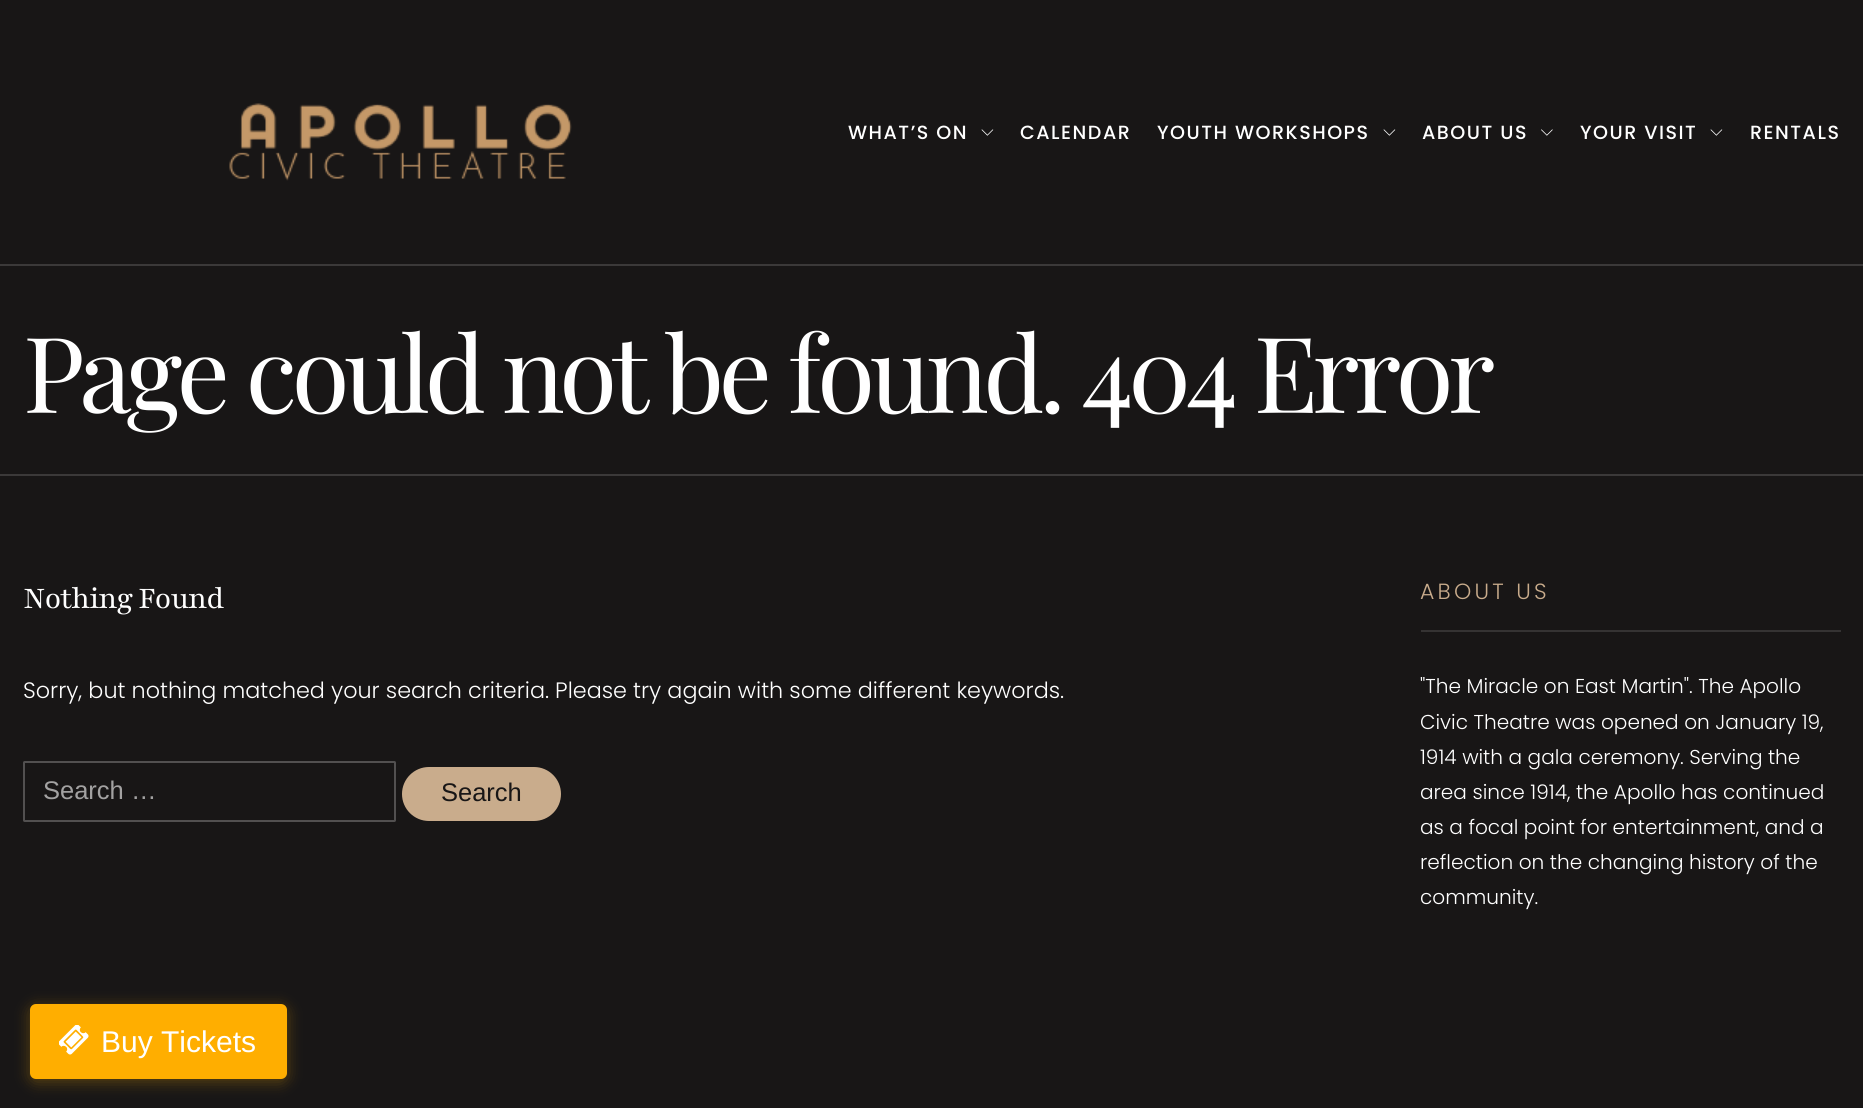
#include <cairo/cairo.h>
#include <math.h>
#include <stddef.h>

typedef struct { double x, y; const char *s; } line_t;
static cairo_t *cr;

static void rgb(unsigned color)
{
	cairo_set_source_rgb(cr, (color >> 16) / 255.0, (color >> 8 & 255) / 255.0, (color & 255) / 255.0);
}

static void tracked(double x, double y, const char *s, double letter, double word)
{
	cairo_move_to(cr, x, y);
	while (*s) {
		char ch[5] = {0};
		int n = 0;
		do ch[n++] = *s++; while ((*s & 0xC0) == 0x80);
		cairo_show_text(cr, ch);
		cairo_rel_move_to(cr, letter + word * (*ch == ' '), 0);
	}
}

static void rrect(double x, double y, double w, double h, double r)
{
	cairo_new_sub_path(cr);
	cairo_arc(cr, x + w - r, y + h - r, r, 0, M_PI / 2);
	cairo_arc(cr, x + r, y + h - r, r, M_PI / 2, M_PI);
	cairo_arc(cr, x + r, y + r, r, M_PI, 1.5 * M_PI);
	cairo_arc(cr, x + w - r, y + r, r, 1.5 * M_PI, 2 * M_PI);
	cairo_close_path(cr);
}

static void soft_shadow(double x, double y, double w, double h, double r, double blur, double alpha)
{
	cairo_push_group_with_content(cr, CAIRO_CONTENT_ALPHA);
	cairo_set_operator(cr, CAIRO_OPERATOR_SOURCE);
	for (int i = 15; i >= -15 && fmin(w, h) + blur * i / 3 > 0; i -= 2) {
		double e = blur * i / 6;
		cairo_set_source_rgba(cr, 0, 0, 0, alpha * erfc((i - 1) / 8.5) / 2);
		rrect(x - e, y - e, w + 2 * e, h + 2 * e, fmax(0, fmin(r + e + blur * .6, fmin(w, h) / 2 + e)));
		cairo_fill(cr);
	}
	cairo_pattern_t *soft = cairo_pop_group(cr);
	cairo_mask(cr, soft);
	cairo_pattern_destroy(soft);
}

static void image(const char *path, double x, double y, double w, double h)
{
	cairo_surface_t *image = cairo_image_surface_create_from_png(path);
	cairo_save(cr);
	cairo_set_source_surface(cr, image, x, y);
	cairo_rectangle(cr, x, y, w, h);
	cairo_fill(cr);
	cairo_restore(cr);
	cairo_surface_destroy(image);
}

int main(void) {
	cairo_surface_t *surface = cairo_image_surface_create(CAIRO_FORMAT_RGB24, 1863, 1108);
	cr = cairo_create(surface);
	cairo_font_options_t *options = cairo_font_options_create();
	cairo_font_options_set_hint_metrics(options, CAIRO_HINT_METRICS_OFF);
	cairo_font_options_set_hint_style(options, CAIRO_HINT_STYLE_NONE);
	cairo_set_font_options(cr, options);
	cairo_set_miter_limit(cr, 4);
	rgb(0x181616);
	cairo_paint(cr);
	image("img/1.png", 229, 103, 343, 78);
	image("img/2.png", 981, 129, 13, 7);
	image("img/2.png", 1383, 129, 13, 7);
	image("img/3.png", 1541, 129, 12, 7);
	image("img/2.png", 1710, 129, 13, 7);
	rgb(0x3b3939);
	cairo_rectangle(cr, 0, 264, 1863, 2);
	cairo_fill(cr);
	cairo_rectangle(cr, 0, 474, 1863, 2);
	cairo_fill(cr);
	rrect(24, 762, 371, 59, 0.5);
	rgb(0x525050);
	cairo_stroke(cr);
	rgb(0xc9ac8c);
	rrect(402, 767, 159, 54, 27);
	cairo_fill(cr);
	rgb(0x353333);
	cairo_rectangle(cr, 1421, 630, 420, 2);
	cairo_fill(cr);
	rgb(0xffae00);
	soft_shadow(30, 1007, 257, 75, 6, 7.5, 0.3);
	rgb(0xffae00);
	rrect(31, 1005, 255, 73, 5);
	cairo_fill_preserve(cr);
	cairo_stroke(cr);
	image("img/4.png", 59, 1025, 30, 30);
	cairo_select_font_face(cr, "Poppins Medium", CAIRO_FONT_SLANT_NORMAL, CAIRO_FONT_WEIGHT_NORMAL);
	cairo_set_font_size(cr, 19.1);
	rgb(0xffffff);
	{
		static const line_t items[] = {
			{848, 139, "WHAT’S ON"},
			{1020, 139, "CALENDAR"},
			{1157, 139, "YOUTH WORKSHOPS"},
			{1422, 139, "ABOUT US"},
			{1580, 139, "YOUR VISIT"},
			{1750, 139, "RENTALS"},
		};
		for (size_t i = 0; i < sizeof items / sizeof *items; i++) {
			tracked(items[i].x, items[i].y, items[i].s, 1.5, 0);
		}
	}
	cairo_select_font_face(cr, "Playfair Display", CAIRO_FONT_SLANT_NORMAL, CAIRO_FONT_WEIGHT_NORMAL);
	cairo_set_font_size(cr, 105.25);
	tracked(23, 413, "Page could not be found. 404 Error", -5.25, 0);
	cairo_select_font_face(cr, "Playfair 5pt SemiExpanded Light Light", CAIRO_FONT_SLANT_NORMAL, CAIRO_FONT_WEIGHT_NORMAL);
	cairo_set_font_size(cr, 33.5);
	tracked(23, 608, "Nothing Found", -1.3, 0);
	cairo_select_font_face(cr, "Poppins Light", CAIRO_FONT_SLANT_NORMAL, CAIRO_FONT_WEIGHT_NORMAL);
	cairo_set_font_size(cr, 22.3);
	cairo_move_to(cr, 23, 698);
	cairo_show_text(cr, "Sorry, but nothing matched your search criteria. Please try again with some different keywords.");
	cairo_select_font_face(cr, "Liberation Sans", CAIRO_FONT_SLANT_NORMAL, CAIRO_FONT_WEIGHT_NORMAL);
	cairo_set_font_size(cr, 25.5);
	rgb(0xa3a2a2);
	cairo_move_to(cr, 43, 799);
	cairo_show_text(cr, "Search …");
	rgb(0x181616);
	cairo_move_to(cr, 441, 801);
	cairo_show_text(cr, "Search");
	cairo_select_font_face(cr, "Poppins Light", CAIRO_FONT_SLANT_NORMAL, CAIRO_FONT_WEIGHT_NORMAL);
	cairo_set_font_size(cr, 22);
	rgb(0xc9ac8c);
	tracked(1420, 599, "ABOUT US", 3.25, 0);
	cairo_set_font_size(cr, 20.1);
	rgb(0xffffff);
	{
		static const line_t items[] = {
			{1420, 693, "\"The Miracle on East Martin\". The Apollo"},
			{1420, 729, "Civic Theatre was opened on January 19,"},
			{1420, 764, "1914 with a gala ceremony. Serving the"},
			{1420, 799, "area since 1914, the Apollo has continued"},
			{1420, 834, "as a focal point for entertainment, and a"},
			{1420, 869, "reflection on the changing history of the"},
			{1420, 904, "community."},
		};
		for (size_t i = 0; i < sizeof items / sizeof *items; i++) {
			cairo_move_to(cr, items[i].x, items[i].y);
			cairo_show_text(cr, items[i].s);
		}
	}
	cairo_select_font_face(cr, "Liberation Sans", CAIRO_FONT_SLANT_NORMAL, CAIRO_FONT_WEIGHT_NORMAL);
	cairo_set_font_size(cr, 30);
	cairo_move_to(cr, 101, 1052);
	cairo_show_text(cr, "Buy Tickets");
	cairo_surface_write_to_png(surface, "page.png");
	cairo_font_options_destroy(options);
	cairo_destroy(cr);
	cairo_surface_destroy(surface);
	return 0;
}
